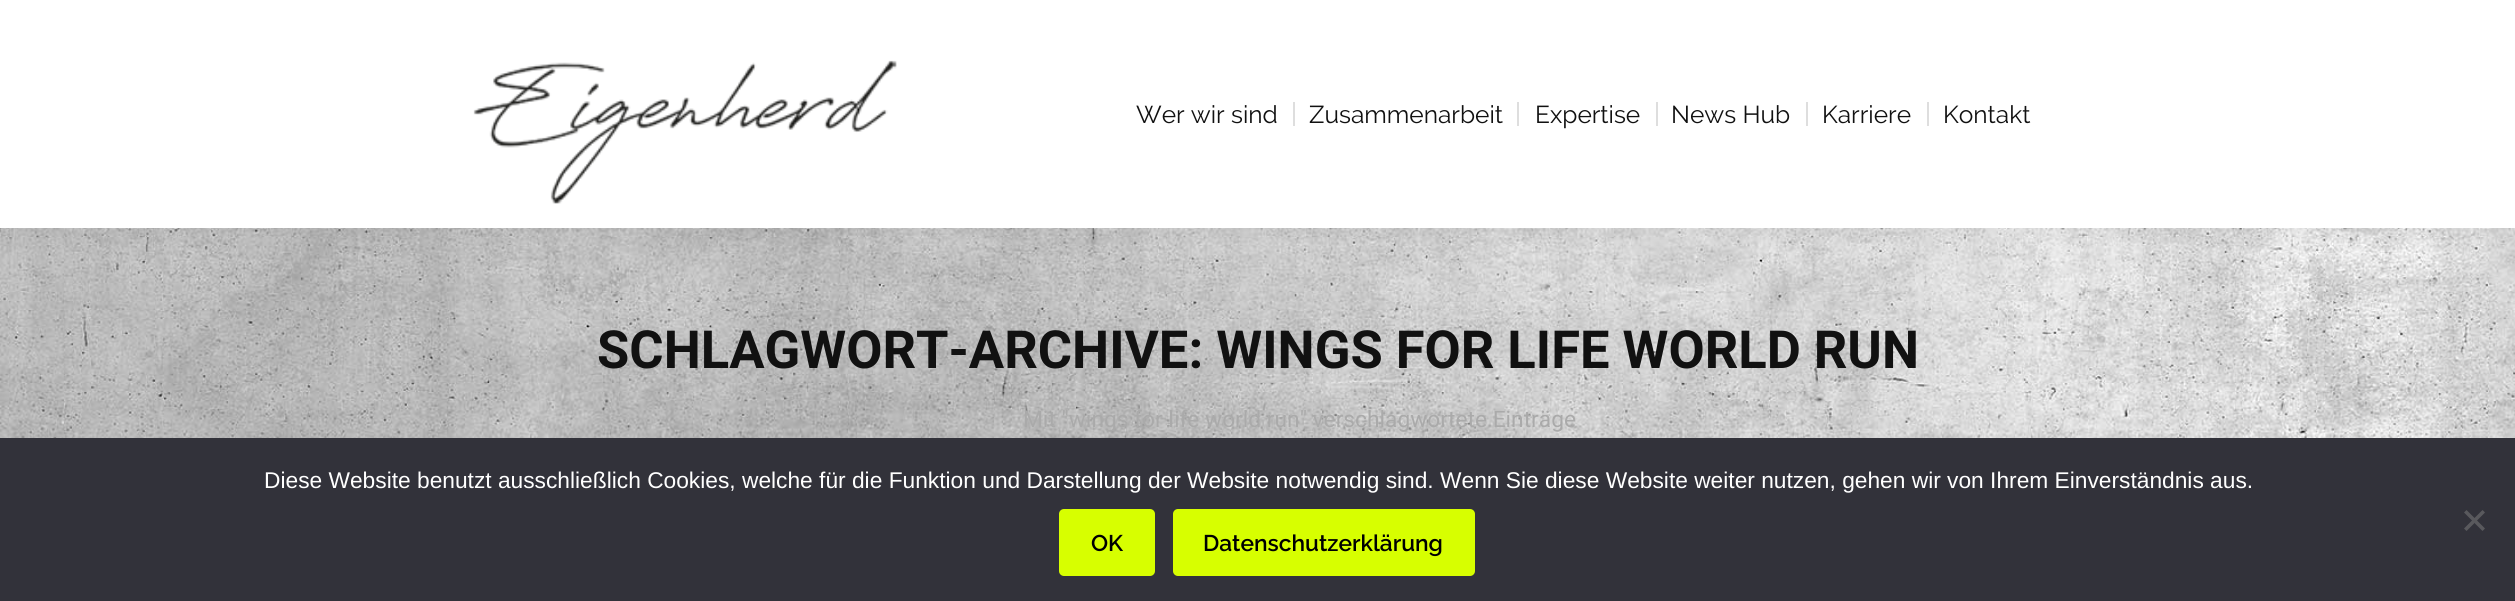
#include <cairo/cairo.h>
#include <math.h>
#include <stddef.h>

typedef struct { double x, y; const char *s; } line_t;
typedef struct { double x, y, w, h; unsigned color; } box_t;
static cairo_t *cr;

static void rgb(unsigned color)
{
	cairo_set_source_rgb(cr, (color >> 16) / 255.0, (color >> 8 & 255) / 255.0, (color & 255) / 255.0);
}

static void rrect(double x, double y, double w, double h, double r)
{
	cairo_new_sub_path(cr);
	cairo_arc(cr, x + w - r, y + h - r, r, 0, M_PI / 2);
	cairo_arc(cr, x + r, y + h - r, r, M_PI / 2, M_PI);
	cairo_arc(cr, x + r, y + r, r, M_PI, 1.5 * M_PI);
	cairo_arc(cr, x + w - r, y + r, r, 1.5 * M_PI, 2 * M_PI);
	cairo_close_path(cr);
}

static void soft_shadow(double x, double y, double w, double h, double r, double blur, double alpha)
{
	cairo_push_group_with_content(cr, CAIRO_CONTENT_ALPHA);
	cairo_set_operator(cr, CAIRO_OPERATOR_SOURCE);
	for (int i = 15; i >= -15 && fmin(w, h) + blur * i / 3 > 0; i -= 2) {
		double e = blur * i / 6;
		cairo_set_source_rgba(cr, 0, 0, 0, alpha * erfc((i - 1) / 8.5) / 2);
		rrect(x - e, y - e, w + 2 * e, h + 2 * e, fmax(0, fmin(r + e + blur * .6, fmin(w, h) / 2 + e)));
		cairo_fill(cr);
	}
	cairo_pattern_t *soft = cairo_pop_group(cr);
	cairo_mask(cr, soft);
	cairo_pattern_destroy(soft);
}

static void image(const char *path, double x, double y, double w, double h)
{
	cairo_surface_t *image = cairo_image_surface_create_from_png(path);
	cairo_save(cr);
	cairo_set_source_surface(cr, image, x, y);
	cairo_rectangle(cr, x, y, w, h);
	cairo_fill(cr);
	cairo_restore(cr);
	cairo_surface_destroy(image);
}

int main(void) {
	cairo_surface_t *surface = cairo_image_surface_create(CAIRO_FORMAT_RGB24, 2515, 601);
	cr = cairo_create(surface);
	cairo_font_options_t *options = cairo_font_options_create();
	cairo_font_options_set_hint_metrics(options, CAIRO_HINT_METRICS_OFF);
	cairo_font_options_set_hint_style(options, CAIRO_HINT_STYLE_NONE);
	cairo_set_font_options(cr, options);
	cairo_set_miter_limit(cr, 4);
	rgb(0xffffff);
	cairo_paint(cr);
	image("img/2.png", 0, 228, 2515, 210);
	rgb(0x000000);
	soft_shadow(-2, -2, 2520, 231, 0, 13, 0.07);
	rgb(0xffffff);
	cairo_rectangle(cr, 0, 0, 2515, 228);
	cairo_fill(cr);
	image("img/1.png", 473, 60, 424, 144);
	{
		static const box_t items[] = {
			{1293, 102, 2, 24, 0xdedede},
			{1517, 102, 2, 24, 0xdedede},
			{1656, 102, 2, 24, 0xdedede},
			{1806, 102, 2, 24, 0xdedede},
			{1927, 102, 2, 24, 0xdedede},
			{0, 438, 2515, 163, 0x32323a},
		};
		for (size_t i = 0; i < sizeof items / sizeof *items; i++) {
			rgb(items[i].color);
			cairo_rectangle(cr, items[i].x, items[i].y, items[i].w, items[i].h);
			cairo_fill(cr);
		}
	}
	rgb(0x59595d);
	cairo_new_path(cr);
	cairo_move_to(cr, 2482.5, 510);
	cairo_line_to(cr, 2485, 512.5);
	cairo_line_to(cr, 2466.5, 531);
	cairo_line_to(cr, 2464, 528.5);
	cairo_close_path(cr);
	cairo_fill(cr);
	cairo_new_path(cr);
	cairo_move_to(cr, 2464, 512.5);
	cairo_line_to(cr, 2466.5, 510);
	cairo_line_to(cr, 2485, 528.5);
	cairo_line_to(cr, 2482.5, 531);
	cairo_close_path(cr);
	cairo_fill(cr);
	rgb(0xd7ff00);
	rrect(1059, 509, 96, 67, 5);
	cairo_fill(cr);
	rrect(1173, 509, 302, 67, 5);
	cairo_fill(cr);
	cairo_select_font_face(cr, "Raleway", CAIRO_FONT_SLANT_NORMAL, CAIRO_FONT_WEIGHT_NORMAL);
	cairo_set_font_size(cr, 24.5);
	rgb(0x111111);
	{
		static const line_t items[] = {
			{1136, 123, "Wer wir sind"},
			{1309, 123, "Zusammenarbeit"},
			{1535, 123, "Expertise"},
			{1671, 123, "News Hub"},
			{1822, 123, "Karriere"},
			{1943, 123, "Kontakt"},
		};
		for (size_t i = 0; i < sizeof items / sizeof *items; i++) {
			cairo_move_to(cr, items[i].x, items[i].y);
			cairo_show_text(cr, items[i].s);
		}
	}
	cairo_select_font_face(cr, "Roboto", CAIRO_FONT_SLANT_NORMAL, CAIRO_FONT_WEIGHT_BOLD);
	cairo_set_font_size(cr, 52.5);
	cairo_move_to(cr, 597, 368);
	cairo_show_text(cr, "SCHLAGWORT-ARCHIVE: WINGS FOR LIFE WORLD RUN");
	cairo_select_font_face(cr, "Roboto", CAIRO_FONT_SLANT_NORMAL, CAIRO_FONT_WEIGHT_NORMAL);
	cairo_set_font_size(cr, 22.75);
	rgb(0xaaaaaa);
	cairo_move_to(cr, 1023, 427);
	cairo_show_text(cr, "Mit \"wings for life world run\" verschlagwortete Einträge");
	cairo_select_font_face(cr, "Liberation Sans", CAIRO_FONT_SLANT_NORMAL, CAIRO_FONT_WEIGHT_NORMAL);
	rgb(0xffffff);
	cairo_move_to(cr, 264, 488);
	cairo_show_text(cr, "Diese Website benutzt ausschließlich Cookies, welche für die Funktion und Darstellung der Website notwendig sind. Wenn Sie diese Website weiter nutzen, gehen wir von Ihrem Einverständnis aus.");
	cairo_select_font_face(cr, "Raleway SemiBold", CAIRO_FONT_SLANT_NORMAL, CAIRO_FONT_WEIGHT_NORMAL);
	rgb(0x000000);
	cairo_move_to(cr, 1091, 551);
	cairo_show_text(cr, "OK");
	cairo_move_to(cr, 1203, 551);
	cairo_show_text(cr, "Datenschutzerklärung");
	cairo_surface_write_to_png(surface, "page.png");
	cairo_font_options_destroy(options);
	cairo_destroy(cr);
	cairo_surface_destroy(surface);
	return 0;
}
